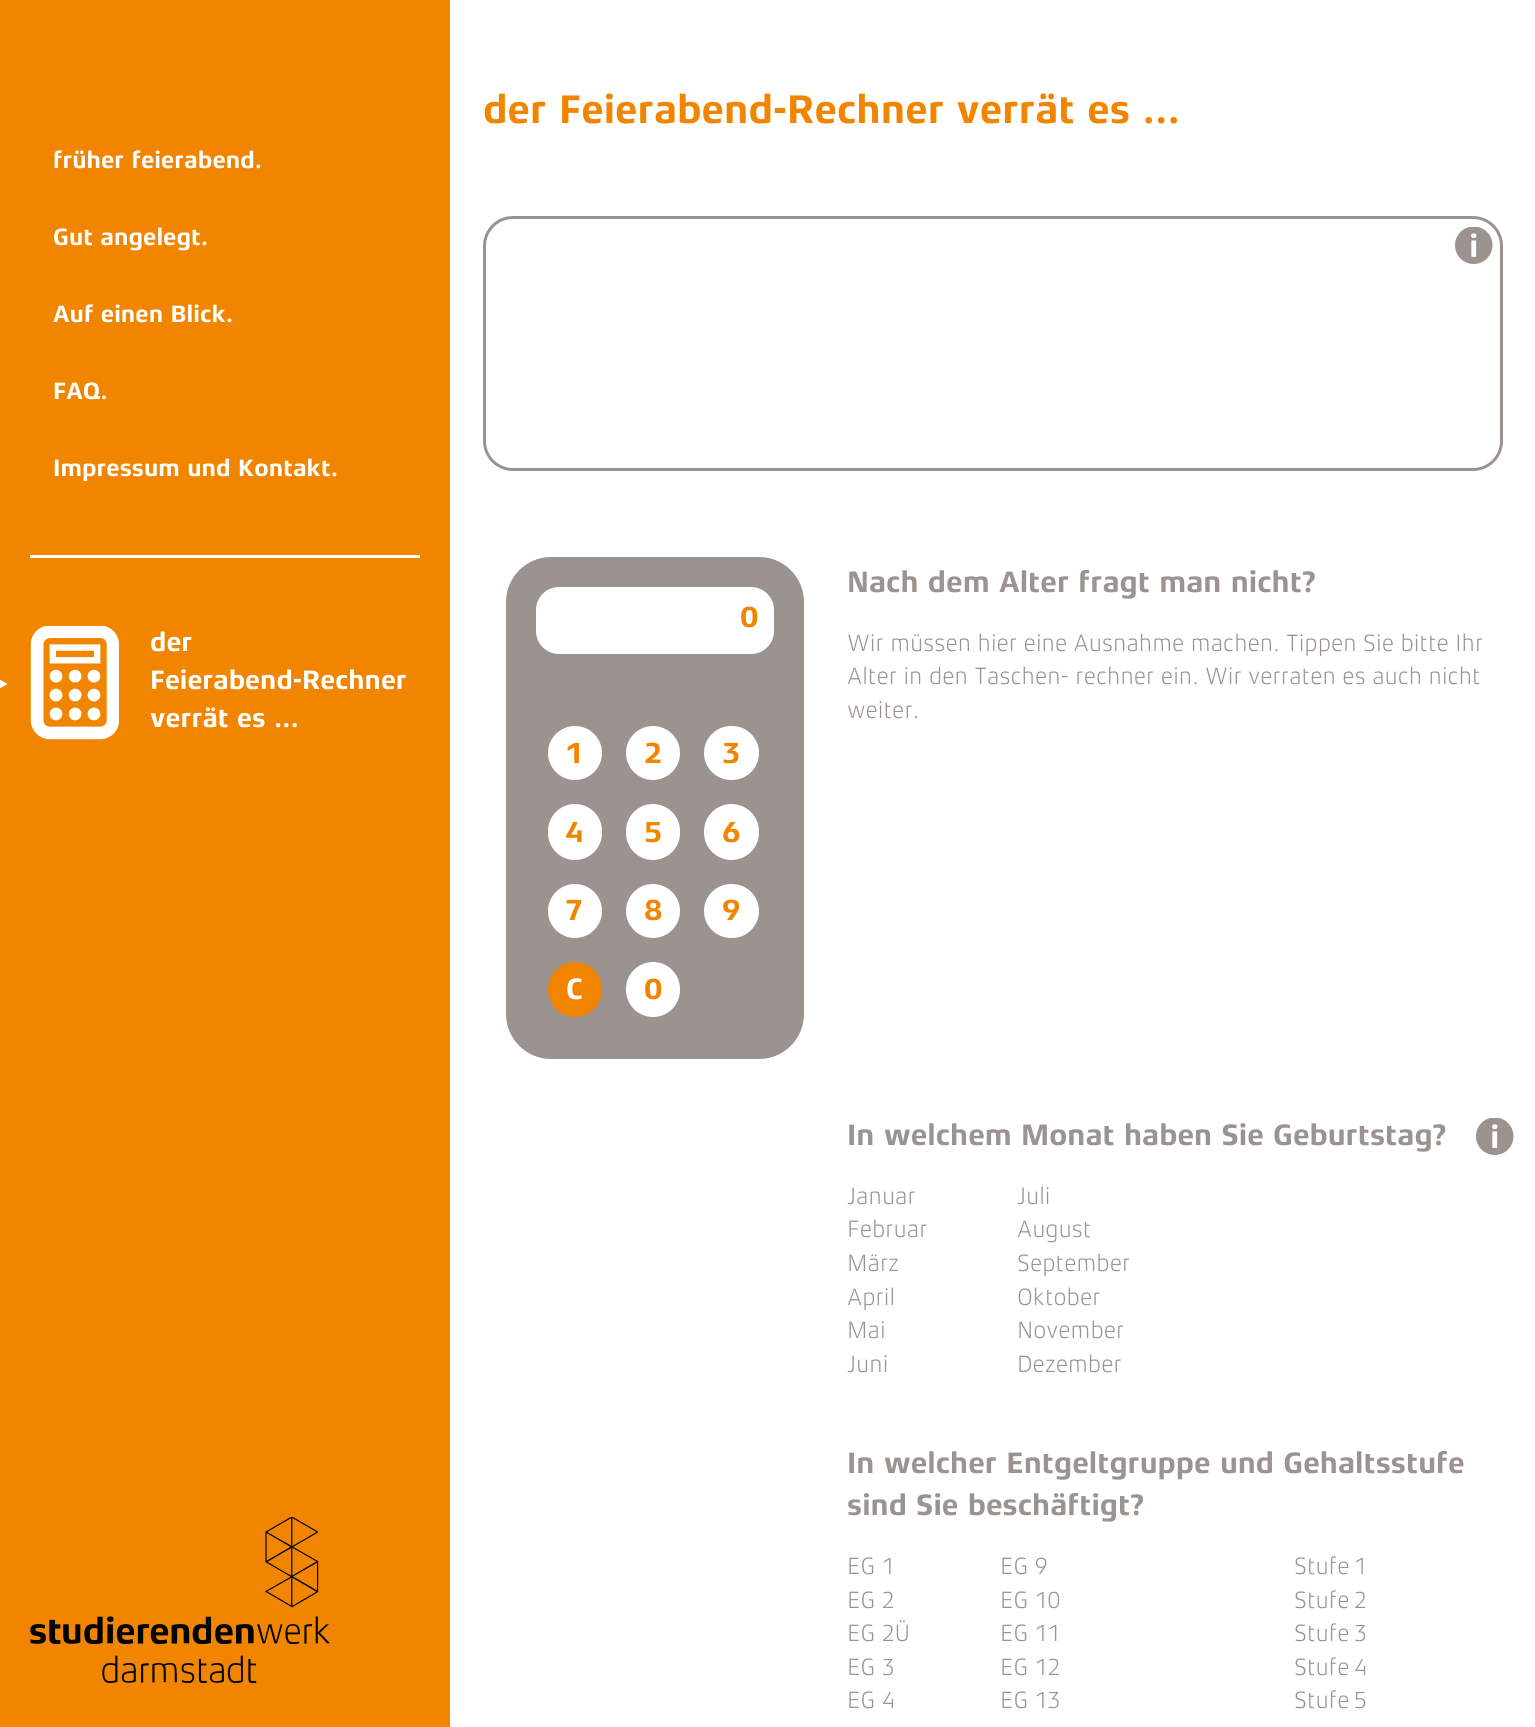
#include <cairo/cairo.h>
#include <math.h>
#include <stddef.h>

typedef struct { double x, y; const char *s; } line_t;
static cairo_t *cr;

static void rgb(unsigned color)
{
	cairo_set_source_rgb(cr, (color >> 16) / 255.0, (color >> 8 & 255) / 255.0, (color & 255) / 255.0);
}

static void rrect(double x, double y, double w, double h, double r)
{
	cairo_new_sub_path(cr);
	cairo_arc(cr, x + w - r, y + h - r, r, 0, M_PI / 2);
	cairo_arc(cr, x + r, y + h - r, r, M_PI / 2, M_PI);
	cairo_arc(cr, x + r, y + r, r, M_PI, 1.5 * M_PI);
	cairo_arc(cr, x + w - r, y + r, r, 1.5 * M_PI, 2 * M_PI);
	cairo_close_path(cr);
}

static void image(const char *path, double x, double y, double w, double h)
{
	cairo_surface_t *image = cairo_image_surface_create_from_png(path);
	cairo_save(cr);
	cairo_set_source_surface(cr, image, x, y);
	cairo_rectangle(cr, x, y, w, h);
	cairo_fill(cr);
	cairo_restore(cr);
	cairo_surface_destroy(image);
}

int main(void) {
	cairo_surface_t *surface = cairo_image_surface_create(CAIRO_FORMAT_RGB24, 1535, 1727);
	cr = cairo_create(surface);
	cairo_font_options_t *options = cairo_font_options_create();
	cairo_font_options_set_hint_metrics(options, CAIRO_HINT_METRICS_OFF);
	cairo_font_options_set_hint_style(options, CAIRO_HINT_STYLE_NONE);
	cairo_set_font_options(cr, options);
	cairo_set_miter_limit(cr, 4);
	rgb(0xffffff);
	cairo_paint(cr);
	rgb(0xf18500);
	cairo_rectangle(cr, 0, 0, 450, 1727);
	cairo_fill(cr);
	rgb(0xffffff);
	cairo_rectangle(cr, 30, 555, 390, 3);
	cairo_fill(cr);
	image("img/1.png", 30, 626, 89, 114);
	cairo_new_path(cr);
	cairo_move_to(cr, -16, 670.5);
	cairo_line_to(cr, -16, 697.5);
	cairo_line_to(cr, 7.5, 684);
	cairo_close_path(cr);
	cairo_fill(cr);
	image("img/2.png", 30, 1517, 300, 166);
	rrect(484.5, 217.5, 1017, 252, 28.5);
	rgb(0x9b938f);
	cairo_set_line_width(cr, 3);
	cairo_stroke(cr);
	image("img/3.png", 1455, 227, 38, 37);
	rrect(506, 557, 298, 502, 45);
	cairo_fill(cr);
	rgb(0xffffff);
	rrect(536, 587, 238, 67, 23);
	cairo_fill(cr);
	cairo_arc(cr, 575, 753, 27, 0, 2 * M_PI);
	cairo_fill(cr);
	cairo_arc(cr, 653, 753, 27, 0, 2 * M_PI);
	cairo_fill(cr);
	rrect(704, 726, 55, 54, 27);
	cairo_fill(cr);
	rrect(548, 804, 54, 56, 27);
	cairo_fill(cr);
	rrect(626, 804, 54, 56, 27);
	cairo_fill(cr);
	rrect(704, 804, 55, 56, 27.5);
	cairo_fill(cr);
	cairo_arc(cr, 575, 911, 27, 0, 2 * M_PI);
	cairo_fill(cr);
	cairo_arc(cr, 653, 911, 27, 0, 2 * M_PI);
	cairo_fill(cr);
	rrect(704, 884, 55, 54, 27);
	cairo_fill(cr);
	rgb(0xf18500);
	rrect(548, 962, 54, 55, 27);
	cairo_fill(cr);
	rgb(0xffffff);
	rrect(626, 962, 54, 55, 27);
	cairo_fill(cr);
	image("img/4.png", 1476, 1118, 38, 37);
	cairo_select_font_face(cr, "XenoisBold", CAIRO_FONT_SLANT_NORMAL, CAIRO_FONT_WEIGHT_NORMAL);
	cairo_set_font_size(cr, 24);
	{
		static const line_t items[] = {
			{53, 168, "früher feierabend."},
			{53, 245, "Gut angelegt."},
			{53, 322, "Auf einen Blick."},
			{53, 399, "FAQ."},
			{53, 476, "Impressum und Kontakt."},
		};
		for (size_t i = 0; i < sizeof items / sizeof *items; i++) {
			cairo_move_to(cr, items[i].x, items[i].y);
			cairo_show_text(cr, items[i].s);
		}
	}
	cairo_set_font_size(cr, 27);
	{
		static const line_t items[] = {
			{150, 651, "der"},
			{150, 689, "Feierabend-Rechner"},
			{150, 727, "verrät es ..."},
		};
		for (size_t i = 0; i < sizeof items / sizeof *items; i++) {
			cairo_move_to(cr, items[i].x, items[i].y);
			cairo_show_text(cr, items[i].s);
		}
	}
	cairo_set_font_size(cr, 40.5);
	rgb(0xf18500);
	cairo_move_to(cr, 483, 123);
	cairo_show_text(cr, "der Feierabend-Rechner verrät es ...");
	cairo_set_font_size(cr, 30);
	{
		static const line_t items[] = {
			{740, 627, "0"},
			{565, 763, "1"},
			{644, 763, "2"},
			{722, 763, "3"},
			{565, 842, "4"},
			{644, 842, "5"},
			{722, 842, "6"},
			{565, 920, "7"},
			{644, 920, "8"},
			{722, 920, "9"},
		};
		for (size_t i = 0; i < sizeof items / sizeof *items; i++) {
			cairo_move_to(cr, items[i].x, items[i].y);
			cairo_show_text(cr, items[i].s);
		}
	}
	rgb(0xffffff);
	cairo_move_to(cr, 566, 999);
	cairo_show_text(cr, "C");
	rgb(0xf18500);
	cairo_move_to(cr, 644, 999);
	cairo_show_text(cr, "0");
	rgb(0x9b938f);
	cairo_move_to(cr, 847, 592);
	cairo_show_text(cr, "Nach dem Alter fragt man nicht?");
	cairo_select_font_face(cr, "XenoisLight", CAIRO_FONT_SLANT_NORMAL, CAIRO_FONT_WEIGHT_NORMAL);
	cairo_set_font_size(cr, 24);
	{
		static const line_t items[] = {
			{847, 651, "Wir müssen hier eine Ausnahme machen. Tippen Sie bitte Ihr"},
			{847, 684, "Alter in den Taschen- rechner ein. Wir verraten es auch nicht"},
			{847, 718, "weiter."},
		};
		for (size_t i = 0; i < sizeof items / sizeof *items; i++) {
			cairo_move_to(cr, items[i].x, items[i].y);
			cairo_show_text(cr, items[i].s);
		}
	}
	cairo_select_font_face(cr, "XenoisBold", CAIRO_FONT_SLANT_NORMAL, CAIRO_FONT_WEIGHT_NORMAL);
	cairo_set_font_size(cr, 30);
	cairo_move_to(cr, 847, 1145);
	cairo_show_text(cr, "In welchem Monat haben Sie Geburtstag?");
	cairo_select_font_face(cr, "XenoisLight", CAIRO_FONT_SLANT_NORMAL, CAIRO_FONT_WEIGHT_NORMAL);
	cairo_set_font_size(cr, 24);
	{
		static const line_t items[] = {
			{847, 1204, "Januar"},
			{847, 1237, "Februar"},
			{847, 1271, "März"},
			{847, 1305, "April"},
			{847, 1338, "Mai"},
			{847, 1372, "Juni"},
			{1017, 1204, "Juli"},
			{1017, 1237, "August"},
			{1017, 1271, "September"},
			{1017, 1305, "Oktober"},
			{1017, 1338, "November"},
			{1017, 1372, "Dezember"},
		};
		for (size_t i = 0; i < sizeof items / sizeof *items; i++) {
			cairo_move_to(cr, items[i].x, items[i].y);
			cairo_show_text(cr, items[i].s);
		}
	}
	cairo_select_font_face(cr, "XenoisBold", CAIRO_FONT_SLANT_NORMAL, CAIRO_FONT_WEIGHT_NORMAL);
	cairo_set_font_size(cr, 30);
	cairo_move_to(cr, 847, 1473);
	cairo_show_text(cr, "In welcher Entgeltgruppe und Gehaltsstufe");
	cairo_move_to(cr, 847, 1515);
	cairo_show_text(cr, "sind Sie beschäftigt?");
	cairo_select_font_face(cr, "XenoisLight", CAIRO_FONT_SLANT_NORMAL, CAIRO_FONT_WEIGHT_NORMAL);
	cairo_set_font_size(cr, 24);
	{
		static const line_t items[] = {
			{847, 1574, "EG 1"},
			{847, 1608, "EG 2"},
			{847, 1641, "EG 2Ü"},
			{847, 1675, "EG 3"},
			{847, 1708, "EG 4"},
			{1000, 1574, "EG 9"},
			{1000, 1608, "EG 10"},
			{1000, 1641, "EG 11"},
			{1000, 1675, "EG 12"},
			{1000, 1708, "EG 13"},
			{1294, 1574, "Stufe"},
			{1354, 1574, "1"},
			{1294, 1608, "Stufe"},
			{1354, 1608, "2"},
			{1294, 1641, "Stufe"},
			{1354, 1641, "3"},
			{1294, 1675, "Stufe"},
			{1354, 1675, "4"},
			{1294, 1708, "Stufe"},
			{1354, 1708, "5"},
		};
		for (size_t i = 0; i < sizeof items / sizeof *items; i++) {
			cairo_move_to(cr, items[i].x, items[i].y);
			cairo_show_text(cr, items[i].s);
		}
	}
	cairo_surface_write_to_png(surface, "page.png");
	cairo_font_options_destroy(options);
	cairo_destroy(cr);
	cairo_surface_destroy(surface);
	return 0;
}
